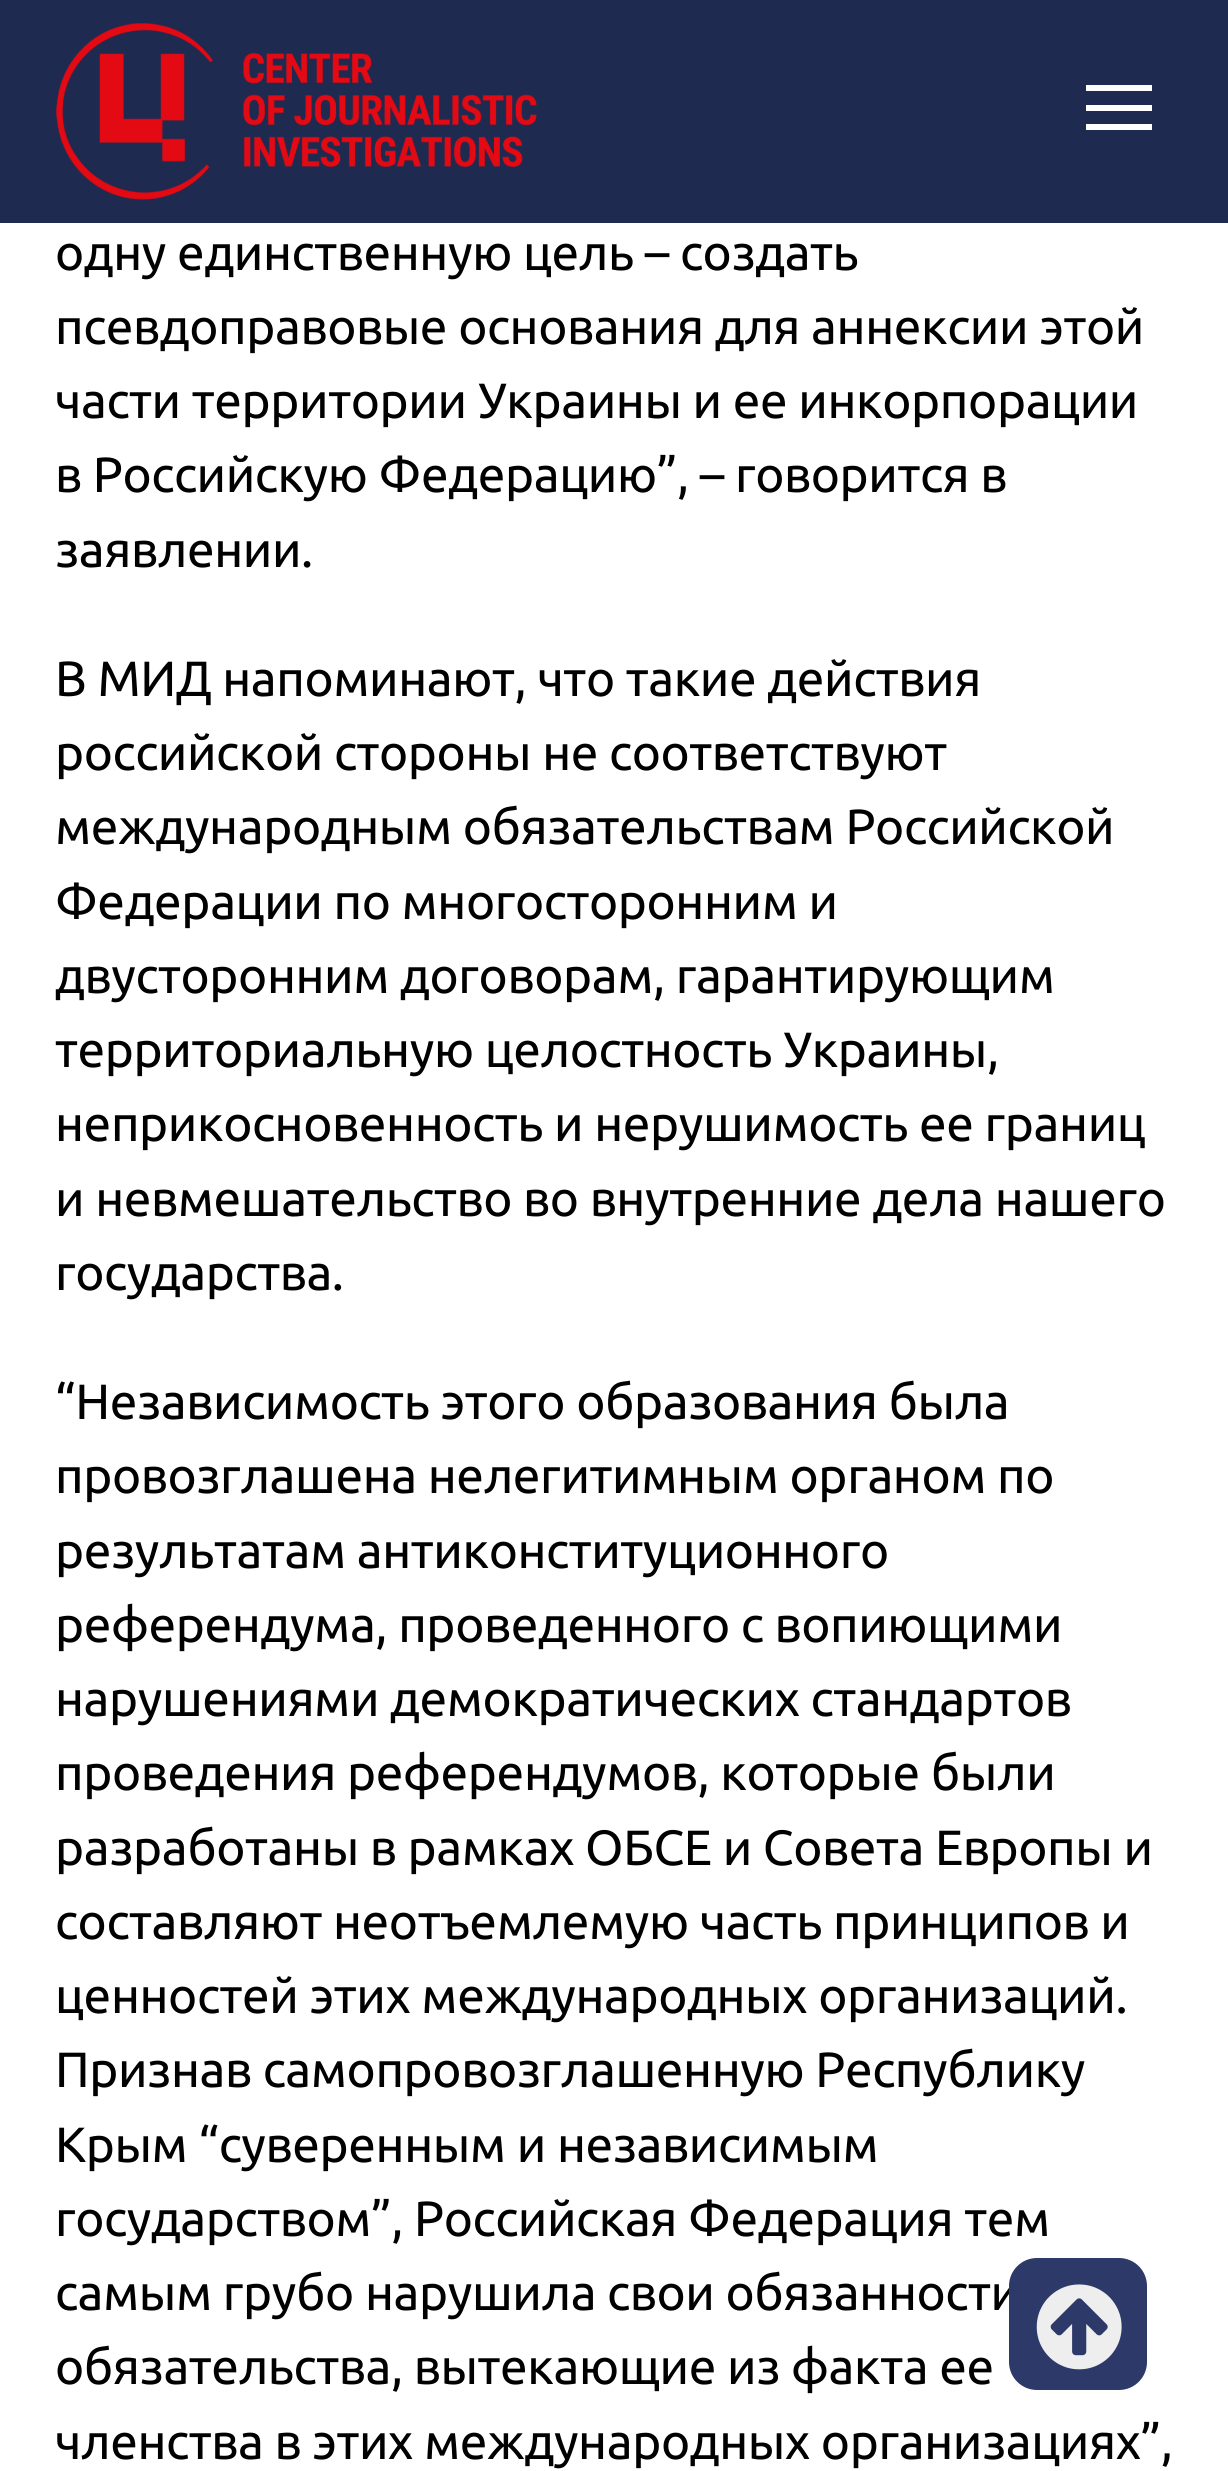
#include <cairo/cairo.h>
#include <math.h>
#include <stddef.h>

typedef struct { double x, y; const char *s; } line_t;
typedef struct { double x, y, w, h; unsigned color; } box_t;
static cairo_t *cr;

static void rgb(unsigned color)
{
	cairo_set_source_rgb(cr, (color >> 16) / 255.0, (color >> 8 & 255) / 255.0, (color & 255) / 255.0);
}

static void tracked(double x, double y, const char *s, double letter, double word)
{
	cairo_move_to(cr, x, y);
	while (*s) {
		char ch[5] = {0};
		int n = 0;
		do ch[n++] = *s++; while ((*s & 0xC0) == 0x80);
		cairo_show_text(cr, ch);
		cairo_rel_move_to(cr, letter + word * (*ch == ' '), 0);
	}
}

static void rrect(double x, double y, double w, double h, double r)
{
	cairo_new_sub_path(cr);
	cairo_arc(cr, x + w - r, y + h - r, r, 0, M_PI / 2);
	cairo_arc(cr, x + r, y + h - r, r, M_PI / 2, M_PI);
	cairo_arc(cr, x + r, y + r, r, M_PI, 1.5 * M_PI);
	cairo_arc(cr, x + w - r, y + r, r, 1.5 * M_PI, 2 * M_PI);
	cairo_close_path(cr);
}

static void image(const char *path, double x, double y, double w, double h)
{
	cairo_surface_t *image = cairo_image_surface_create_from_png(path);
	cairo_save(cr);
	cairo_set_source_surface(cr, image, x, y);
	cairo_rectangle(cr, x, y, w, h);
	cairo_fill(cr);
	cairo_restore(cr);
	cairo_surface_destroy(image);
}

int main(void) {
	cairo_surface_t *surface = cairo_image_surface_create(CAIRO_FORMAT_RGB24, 1228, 2471);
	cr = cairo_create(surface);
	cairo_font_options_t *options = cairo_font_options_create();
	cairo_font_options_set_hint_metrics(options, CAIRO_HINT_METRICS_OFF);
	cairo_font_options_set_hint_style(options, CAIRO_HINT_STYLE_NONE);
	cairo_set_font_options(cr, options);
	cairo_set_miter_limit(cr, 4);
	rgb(0xffffff);
	cairo_paint(cr);
	rgb(0x1f2a50);
	cairo_rectangle(cr, 0, 0, 1228, 223);
	cairo_fill(cr);
	image("img/1.png", 56, 23, 481, 177);
	{
		static const box_t items[] = {
			{1086, 85, 66, 6, 0xffffff},
			{1086, 105, 66, 6, 0xffffff},
			{1086, 124, 66, 6, 0xffffff},
		};
		for (size_t i = 0; i < sizeof items / sizeof *items; i++) {
			rgb(items[i].color);
			cairo_rectangle(cr, items[i].x, items[i].y, items[i].w, items[i].h);
			cairo_fill(cr);
		}
	}
	cairo_select_font_face(cr, "Ubuntu", CAIRO_FONT_SLANT_NORMAL, CAIRO_FONT_WEIGHT_NORMAL);
	cairo_set_font_size(cr, 49.5);
	rgb(0x000000);
	{
		static const line_t items[] = {
			{55, 270, "одну единственную цель – создать"},
			{55, 344, "псевдоправовые основания для аннексии этой"},
			{55, 418, "части территории Украины и ее инкорпорации"},
			{55, 492, "в Российскую Федерацию”, – говорится в"},
			{55, 567, "заявлении."},
			{55, 696, "В МИД напоминают, что такие действия"},
			{55, 770, "российской стороны не соответствуют"},
			{55, 844, "международным обязательствам Российской"},
			{55, 919, "Федерации по многосторонним и"},
			{55, 993, "двусторонним договорам, гарантирующим"},
			{55, 1067, "территориальную целостность Украины,"},
			{55, 1141, "неприкосновенность и нерушимость ее границ"},
			{55, 1216, "и невмешательство во внутренние дела нашего"},
			{55, 1290, "государства."},
			{55, 1419, "“Независимость этого образования была"},
			{55, 1493, "провозглашена нелегитимным органом по"},
			{55, 1568, "результатам антиконституционного"},
			{55, 1642, "референдума, проведенного с вопиющими"},
			{55, 1716, "нарушениями демократических стандартов"},
			{55, 1790, "проведения референдумов, которые были"},
			{55, 1865, "разработаны в рамках ОБСЕ и Совета Европы и"},
			{55, 1939, "составляют неотъемлемую часть принципов и"},
			{55, 2013, "ценностей этих международных организаций."},
			{55, 2087, "Признав самопровозглашенную Республику"},
			{55, 2162, "Крым “суверенным и независимым"},
			{55, 2236, "государством”, Российская Федерация тем"},
			{55, 2310, "самым грубо нарушила свои обязанности"},
			{55, 2384, "обязательства, вытекающие из факта ее"},
			{55, 2459, "членства в этих международных организациях”,"},
		};
		for (size_t i = 0; i < sizeof items / sizeof *items; i++) {
			tracked(items[i].x, items[i].y, items[i].s, -0.4, 0);
		}
	}
	rgb(0x2d3969);
	rrect(1009, 2258, 138, 132, 28);
	cairo_fill(cr);
	image("img/2.png", 1036, 2284, 86, 86);
	cairo_surface_write_to_png(surface, "page.png");
	cairo_font_options_destroy(options);
	cairo_destroy(cr);
	cairo_surface_destroy(surface);
	return 0;
}
